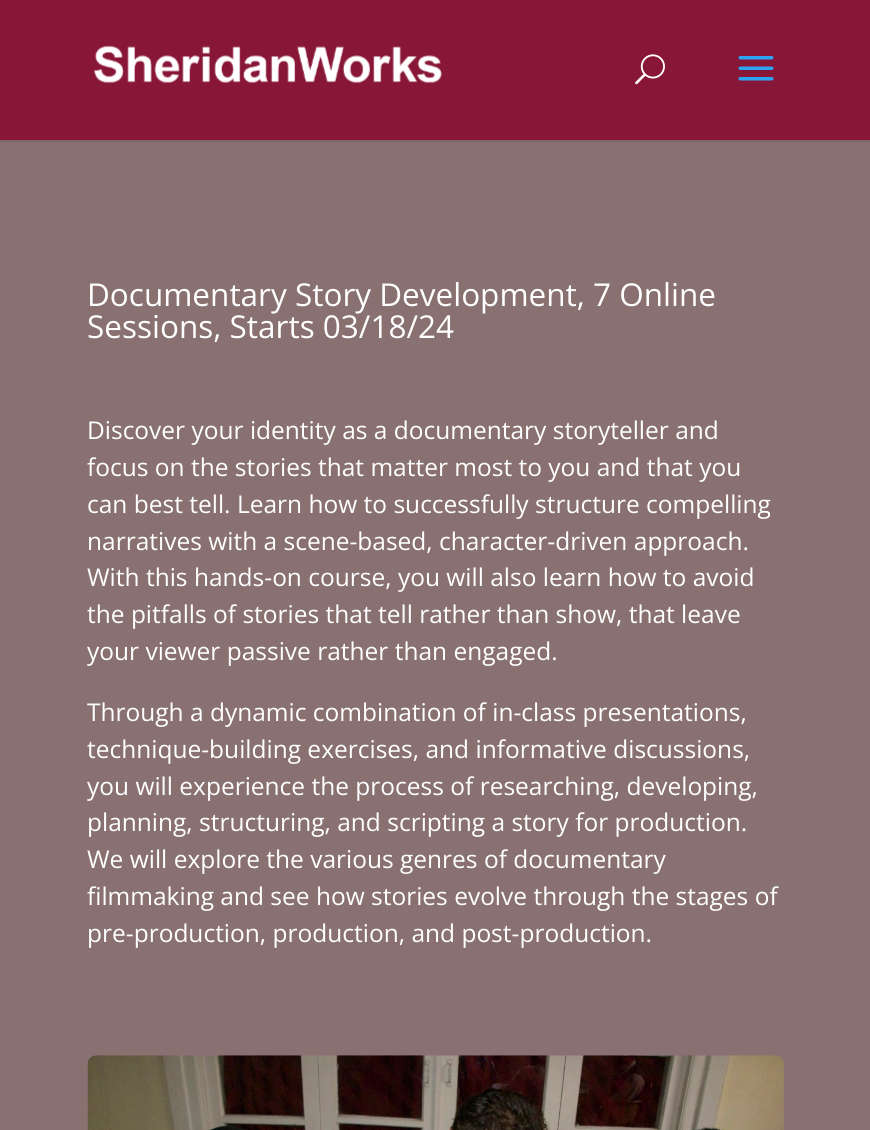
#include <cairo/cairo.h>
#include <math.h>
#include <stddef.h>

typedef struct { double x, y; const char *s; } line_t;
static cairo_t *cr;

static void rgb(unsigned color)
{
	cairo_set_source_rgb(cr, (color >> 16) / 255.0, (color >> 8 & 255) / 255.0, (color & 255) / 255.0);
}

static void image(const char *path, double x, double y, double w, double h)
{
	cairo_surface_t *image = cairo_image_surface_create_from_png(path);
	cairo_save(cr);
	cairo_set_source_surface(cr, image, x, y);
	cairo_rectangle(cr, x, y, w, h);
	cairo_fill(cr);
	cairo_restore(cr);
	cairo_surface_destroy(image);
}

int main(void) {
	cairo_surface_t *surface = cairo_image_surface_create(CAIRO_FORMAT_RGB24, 870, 1130);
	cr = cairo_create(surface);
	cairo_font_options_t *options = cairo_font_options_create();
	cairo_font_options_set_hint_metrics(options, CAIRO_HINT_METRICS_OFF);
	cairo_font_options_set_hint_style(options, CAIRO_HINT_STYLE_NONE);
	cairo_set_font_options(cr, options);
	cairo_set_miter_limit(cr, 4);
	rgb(0x897171);
	cairo_paint(cr);
	rgb(0x7b6666);
	cairo_new_path(cr);
	cairo_move_to(cr, 0, 140);
	cairo_line_to(cr, 0, 142);
	cairo_line_to(cr, 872, 142);
	cairo_line_to(cr, 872, 2);
	cairo_line_to(cr, 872, 140);
	cairo_close_path(cr);
	cairo_fill(cr);
	rgb(0x881637);
	cairo_rectangle(cr, 0, 0, 870, 140);
	cairo_fill(cr);
	image("img/1.png", 93, 45, 349, 38);
	image("img/2.png", 635, 54, 30, 31);
	image("img/3.png", 738, 56, 36, 25);
	image("img/4.png", 87, 1055, 697, 75);
	cairo_select_font_face(cr, "Open Sans", CAIRO_FONT_SLANT_NORMAL, CAIRO_FONT_WEIGHT_NORMAL);
	cairo_set_font_size(cr, 31.5);
	rgb(0xffffff);
	cairo_move_to(cr, 87, 306);
	cairo_show_text(cr, "Documentary Story Development, 7 Online");
	cairo_move_to(cr, 87, 338);
	cairo_show_text(cr, "Sessions, Starts 03/18/24");
	cairo_set_font_size(cr, 24.5);
	{
		static const line_t items[] = {
			{87, 439, "Discover your identity as a documentary storyteller and"},
			{87, 476, "focus on the stories that matter most to you and that you"},
			{87, 513, "can best tell. Learn how to successfully structure compelling"},
			{87, 550, "narratives with a scene-based, character-driven approach."},
			{87, 586, "With this hands-on course, you will also learn how to avoid"},
			{87, 623, "the pitfalls of stories that tell rather than show, that leave"},
			{87, 660, "your viewer passive rather than engaged."},
			{87, 721, "Through a dynamic combination of in-class presentations,"},
			{87, 758, "technique-building exercises, and informative discussions,"},
			{87, 795, "you will experience the process of researching, developing,"},
			{87, 831, "planning, structuring, and scripting a story for production."},
			{87, 868, "We will explore the various genres of documentary"},
			{87, 905, "filmmaking and see how stories evolve through the stages of"},
			{87, 942, "pre-production, production, and post-production."},
		};
		for (size_t i = 0; i < sizeof items / sizeof *items; i++) {
			cairo_move_to(cr, items[i].x, items[i].y);
			cairo_show_text(cr, items[i].s);
		}
	}
	cairo_surface_write_to_png(surface, "page.png");
	cairo_font_options_destroy(options);
	cairo_destroy(cr);
	cairo_surface_destroy(surface);
	return 0;
}
